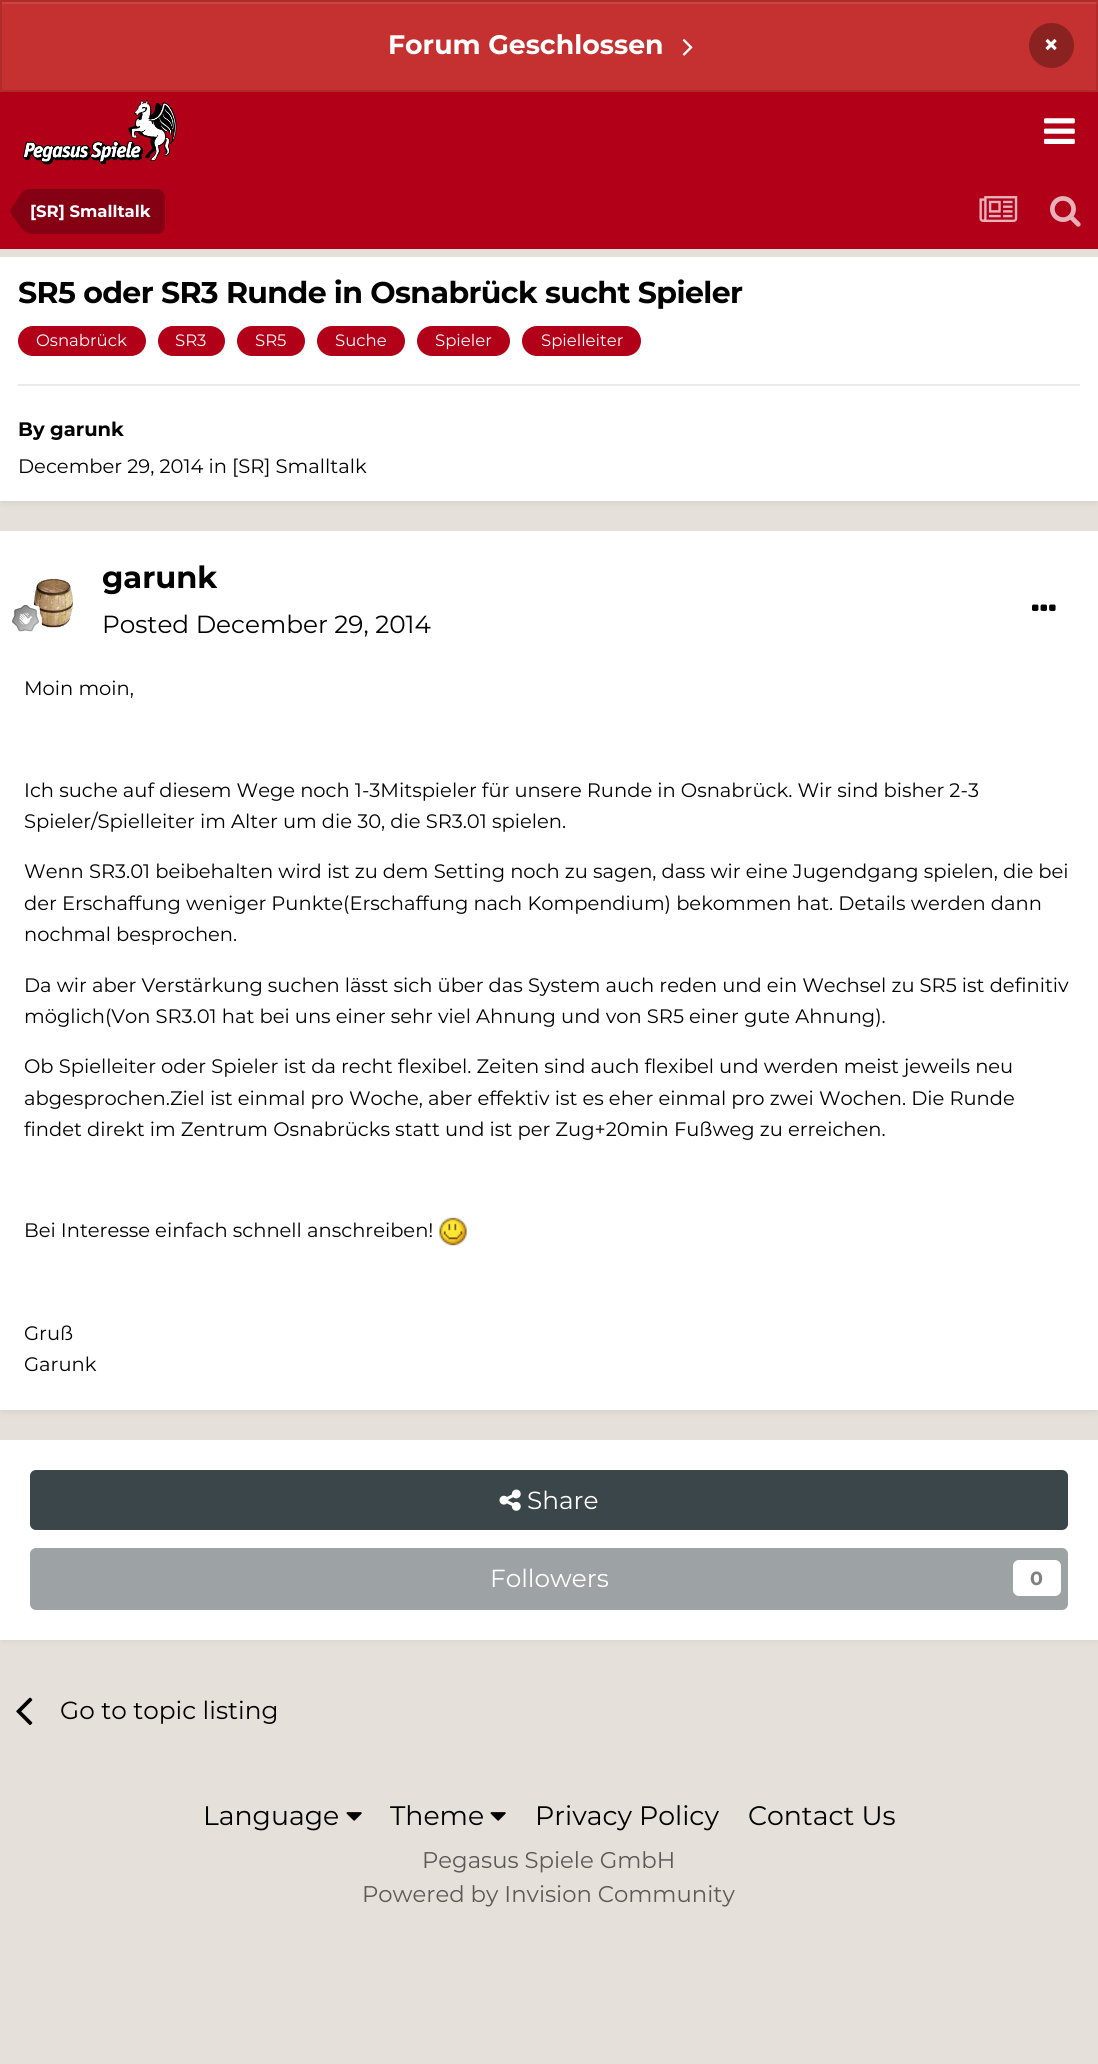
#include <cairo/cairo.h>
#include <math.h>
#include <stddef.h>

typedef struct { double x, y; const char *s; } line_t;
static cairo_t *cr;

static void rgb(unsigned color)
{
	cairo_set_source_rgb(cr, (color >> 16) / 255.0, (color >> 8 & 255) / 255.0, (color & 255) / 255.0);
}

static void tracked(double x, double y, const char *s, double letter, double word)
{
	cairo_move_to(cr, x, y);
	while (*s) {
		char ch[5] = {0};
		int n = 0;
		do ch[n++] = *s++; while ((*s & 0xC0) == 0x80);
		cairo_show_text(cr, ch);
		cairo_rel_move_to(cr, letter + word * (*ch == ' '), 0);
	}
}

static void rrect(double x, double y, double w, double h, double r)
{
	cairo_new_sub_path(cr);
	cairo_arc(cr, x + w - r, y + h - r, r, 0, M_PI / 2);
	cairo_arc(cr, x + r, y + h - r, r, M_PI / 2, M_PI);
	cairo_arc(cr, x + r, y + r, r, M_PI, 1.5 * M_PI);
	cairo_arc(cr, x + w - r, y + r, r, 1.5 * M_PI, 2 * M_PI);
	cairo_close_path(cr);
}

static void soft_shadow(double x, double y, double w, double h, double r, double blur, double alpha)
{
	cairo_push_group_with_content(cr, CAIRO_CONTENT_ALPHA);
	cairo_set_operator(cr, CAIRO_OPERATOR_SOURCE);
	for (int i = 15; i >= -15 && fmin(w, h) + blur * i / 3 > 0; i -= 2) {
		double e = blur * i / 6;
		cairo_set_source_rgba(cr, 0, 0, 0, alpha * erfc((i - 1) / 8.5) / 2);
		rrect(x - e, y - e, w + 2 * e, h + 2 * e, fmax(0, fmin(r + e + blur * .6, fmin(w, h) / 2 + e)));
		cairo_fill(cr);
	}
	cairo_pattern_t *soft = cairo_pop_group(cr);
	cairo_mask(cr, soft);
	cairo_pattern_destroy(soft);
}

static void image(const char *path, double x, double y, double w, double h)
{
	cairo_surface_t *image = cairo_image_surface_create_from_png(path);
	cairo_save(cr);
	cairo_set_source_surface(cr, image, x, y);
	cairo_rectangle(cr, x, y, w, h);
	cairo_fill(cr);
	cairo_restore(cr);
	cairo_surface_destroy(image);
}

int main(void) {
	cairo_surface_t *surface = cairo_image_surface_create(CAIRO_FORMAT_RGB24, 1098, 2064);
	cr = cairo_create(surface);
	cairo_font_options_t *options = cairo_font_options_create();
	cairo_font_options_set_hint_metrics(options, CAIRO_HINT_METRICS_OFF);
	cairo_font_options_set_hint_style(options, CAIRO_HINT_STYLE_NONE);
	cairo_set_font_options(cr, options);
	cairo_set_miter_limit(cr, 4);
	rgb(0xe5e0da);
	cairo_paint(cr);
	rgb(0xc53030);
	cairo_rectangle(cr, 0, 0, 1098, 92);
	cairo_fill(cr);
	rgb(0xcb4545);
	cairo_rectangle(cr, 2, 2, 1095, 2);
	cairo_fill(cr);
	cairo_rectangle(cr, 1, 1, 1096, 90);
	cairo_set_source_rgba(cr, 0, 0, 0, 0.1);
	cairo_stroke(cr);
	image("img/1.png", 682, 39, 11, 17);
	rgb(0x8a2222);
	cairo_arc(cr, 1051.5, 45.5, 22.5, 0, 2 * M_PI);
	cairo_fill(cr);
	rgb(0xb30019);
	cairo_rectangle(cr, 0, 92, 1098, 157);
	cairo_fill(cr);
	image("img/2.png", 22, 99, 155, 66);
	image("img/3.png", 1044, 118, 31, 26);
	rgb(0x860013);
	cairo_new_path(cr);
	cairo_move_to(cr, 30, 189);
	cairo_line_to(cr, 157, 189);
	cairo_curve_to(cr, 161.5, 189, 165, 192.5, 165, 197);
	cairo_line_to(cr, 165, 226);
	cairo_curve_to(cr, 165, 230.5, 161.5, 234, 157, 234);
	cairo_line_to(cr, 30, 234);
	cairo_close_path(cr);
	cairo_fill(cr);
	cairo_new_path(cr);
	cairo_move_to(cr, 10.5, 213);
	cairo_line_to(cr, 10.5, 211);
	cairo_line_to(cr, 30, 211);
	cairo_line_to(cr, 30, 233);
	cairo_curve_to(cr, 27, 233, 24, 232, 22, 229);
	cairo_close_path(cr);
	cairo_move_to(cr, 30, 189);
	cairo_line_to(cr, 30, 211);
	cairo_line_to(cr, 10.5, 211);
	cairo_line_to(cr, 10.5, 209);
	cairo_line_to(cr, 22, 192.5);
	cairo_curve_to(cr, 24.5, 190, 27, 189, 30, 189);
	cairo_close_path(cr);
	cairo_fill(cr);
	image("img/4.png", 979, 196, 39, 26);
	image("img/5.png", 1050, 196, 31, 31);
	rgb(0x3a4649);
	soft_shadow(2, 261, 1095, 242, 0, 3, 0.1);
	rgb(0xffffff);
	cairo_rectangle(cr, 0, 257, 1098, 244);
	cairo_fill(cr);
	rgb(0xb30019);
	rrect(18, 326, 128, 30, 15);
	cairo_fill(cr);
	rrect(158, 326, 67, 30, 15);
	cairo_fill(cr);
	rrect(237, 326, 68, 30, 15);
	cairo_fill(cr);
	rrect(317, 326, 88, 30, 15);
	cairo_fill(cr);
	rrect(417, 326, 93, 30, 15);
	cairo_fill(cr);
	rrect(522, 326, 119, 30, 15);
	cairo_fill(cr);
	rgb(0xebebeb);
	cairo_rectangle(cr, 18, 384, 1062, 2);
	cairo_fill(cr);
	rgb(0x3a4649);
	soft_shadow(2, 536, 1095, 876, 0, 3, 0.1);
	rgb(0xffffff);
	cairo_rectangle(cr, 0, 531, 1098, 879);
	cairo_fill(cr);
	image("img/7.png", 33, 578, 40, 50);
	image("img/6.png", 12, 605, 30, 27);
	image("img/8.png", 1032, 604, 24, 7);
	image("img/9.png", 439, 1217, 28, 29);
	rgb(0x3a4649);
	soft_shadow(2, 1445, 1095, 196, 0, 3, 0.1);
	rgb(0xffffff);
	cairo_rectangle(cr, 0, 1440, 1098, 200);
	cairo_fill(cr);
	rgb(0x3a4649);
	rrect(30, 1470, 1038, 60, 6);
	cairo_fill(cr);
	image("img/10.png", 499, 1489, 22, 22);
	rgb(0x9da3a4);
	rrect(30, 1548, 1038, 62, 6);
	cairo_fill(cr);
	rgb(0xffffff);
	rrect(1013, 1560, 48, 36, 6);
	cairo_fill(cr);
	image("img/11.png", 16, 1697, 17, 29);
	image("img/12.png", 346, 1812, 16, 9);
	image("img/12.png", 490, 1812, 16, 9);
	cairo_select_font_face(cr, "Montserrat", CAIRO_FONT_SLANT_NORMAL, CAIRO_FONT_WEIGHT_BOLD);
	cairo_set_font_size(cr, 26.75);
	cairo_move_to(cr, 388, 54);
	cairo_show_text(cr, "Forum Geschlossen");
	cairo_set_font_size(cr, 27);
	cairo_move_to(cr, 1043, 54);
	cairo_show_text(cr, "×");
	cairo_set_font_size(cr, 16.5);
	cairo_move_to(cr, 30, 217);
	cairo_show_text(cr, "[SR] Smalltalk");
	cairo_set_font_size(cr, 30);
	rgb(0x000000);
	tracked(18, 303, "SR5 oder SR3 Runde in Osnabrück sucht Spieler", -0.6, 0);
	cairo_select_font_face(cr, "Montserrat", CAIRO_FONT_SLANT_NORMAL, CAIRO_FONT_WEIGHT_NORMAL);
	cairo_set_font_size(cr, 16.5);
	rgb(0xffffff);
	{
		static const line_t items[] = {
			{36, 346, "Osnabrück"},
			{175, 346, "SR3"},
			{255, 346, "SR5"},
			{335, 346, "Suche"},
			{435, 346, "Spieler"},
			{541, 346, "Spielleiter"},
		};
		for (size_t i = 0; i < sizeof items / sizeof *items; i++) {
			cairo_move_to(cr, items[i].x, items[i].y);
			cairo_show_text(cr, items[i].s);
		}
	}
	cairo_select_font_face(cr, "Montserrat", CAIRO_FONT_SLANT_NORMAL, CAIRO_FONT_WEIGHT_BOLD);
	cairo_set_font_size(cr, 19.5);
	rgb(0x000000);
	cairo_move_to(cr, 18, 436);
	cairo_show_text(cr, "By garunk");
	cairo_select_font_face(cr, "Montserrat", CAIRO_FONT_SLANT_NORMAL, CAIRO_FONT_WEIGHT_NORMAL);
	cairo_move_to(cr, 18, 473);
	cairo_show_text(cr, "December 29, 2014 in [SR] Smalltalk");
	cairo_select_font_face(cr, "Montserrat", CAIRO_FONT_SLANT_NORMAL, CAIRO_FONT_WEIGHT_BOLD);
	cairo_set_font_size(cr, 30.5);
	cairo_move_to(cr, 102, 588);
	cairo_show_text(cr, "garunk");
	cairo_select_font_face(cr, "Montserrat", CAIRO_FONT_SLANT_NORMAL, CAIRO_FONT_WEIGHT_NORMAL);
	cairo_set_font_size(cr, 24.75);
	cairo_move_to(cr, 102, 633);
	cairo_show_text(cr, "Posted December 29, 2014");
	cairo_set_font_size(cr, 19.5);
	{
		static const line_t items[] = {
			{24, 695, "Moin moin,"},
			{24, 797, "Ich suche auf diesem Wege noch 1-3Mitspieler für unsere Runde in Osnabrück. Wir sind bisher 2-3"},
			{24, 828, "Spieler/Spielleiter im Alter um die 30, die SR3.01 spielen."},
			{24, 878, "Wenn SR3.01 beibehalten wird ist zu dem Setting noch zu sagen, dass wir eine Jugendgang spielen, die bei"},
			{24, 910, "der Erschaffung weniger Punkte(Erschaffung nach Kompendium) bekommen hat. Details werden dann"},
			{24, 941, "nochmal besprochen."},
			{24, 992, "Da wir aber Verstärkung suchen lässt sich über das System auch reden und ein Wechsel zu SR5 ist definitiv"},
			{24, 1023, "möglich(Von SR3.01 hat bei uns einer sehr viel Ahnung und von SR5 einer gute Ahnung)."},
			{24, 1073, "Ob Spielleiter oder Spieler ist da recht flexibel. Zeiten sind auch flexibel und werden meist jeweils neu"},
			{24, 1105, "abgesprochen.Ziel ist einmal pro Woche, aber effektiv ist es eher einmal pro zwei Wochen. Die Runde"},
			{24, 1136, "findet direkt im Zentrum Osnabrücks statt und ist per Zug+20min Fußweg zu erreichen."},
			{24, 1237, "Bei Interesse einfach schnell anschreiben!"},
			{24, 1340, "Gruß"},
			{24, 1371, "Garunk"},
		};
		for (size_t i = 0; i < sizeof items / sizeof *items; i++) {
			cairo_move_to(cr, items[i].x, items[i].y);
			cairo_show_text(cr, items[i].s);
		}
	}
	cairo_set_font_size(cr, 24.75);
	rgb(0xffffff);
	cairo_move_to(cr, 527, 1509);
	cairo_show_text(cr, "Share");
	cairo_move_to(cr, 490, 1587);
	cairo_show_text(cr, "Followers");
	cairo_select_font_face(cr, "Montserrat", CAIRO_FONT_SLANT_NORMAL, CAIRO_FONT_WEIGHT_BOLD);
	cairo_set_font_size(cr, 19);
	rgb(0x808080);
	cairo_move_to(cr, 1030, 1585);
	cairo_show_text(cr, "0");
	cairo_select_font_face(cr, "Montserrat", CAIRO_FONT_SLANT_NORMAL, CAIRO_FONT_WEIGHT_NORMAL);
	cairo_set_font_size(cr, 24.75);
	rgb(0x000000);
	cairo_move_to(cr, 60, 1719);
	cairo_show_text(cr, "Go to topic listing");
	cairo_set_font_size(cr, 26.75);
	{
		static const line_t items[] = {
			{203, 1825, "Language"},
			{390, 1825, "Theme"},
			{535, 1825, "Privacy Policy"},
			{748, 1825, "Contact Us"},
		};
		for (size_t i = 0; i < sizeof items / sizeof *items; i++) {
			cairo_move_to(cr, items[i].x, items[i].y);
			cairo_show_text(cr, items[i].s);
		}
	}
	cairo_set_font_size(cr, 22.75);
	rgb(0x5c5a57);
	cairo_move_to(cr, 422, 1868);
	cairo_show_text(cr, "Pegasus Spiele GmbH");
	cairo_move_to(cr, 362, 1902);
	cairo_show_text(cr, "Powered by Invision Community");
	cairo_surface_write_to_png(surface, "page.png");
	cairo_font_options_destroy(options);
	cairo_destroy(cr);
	cairo_surface_destroy(surface);
	return 0;
}
